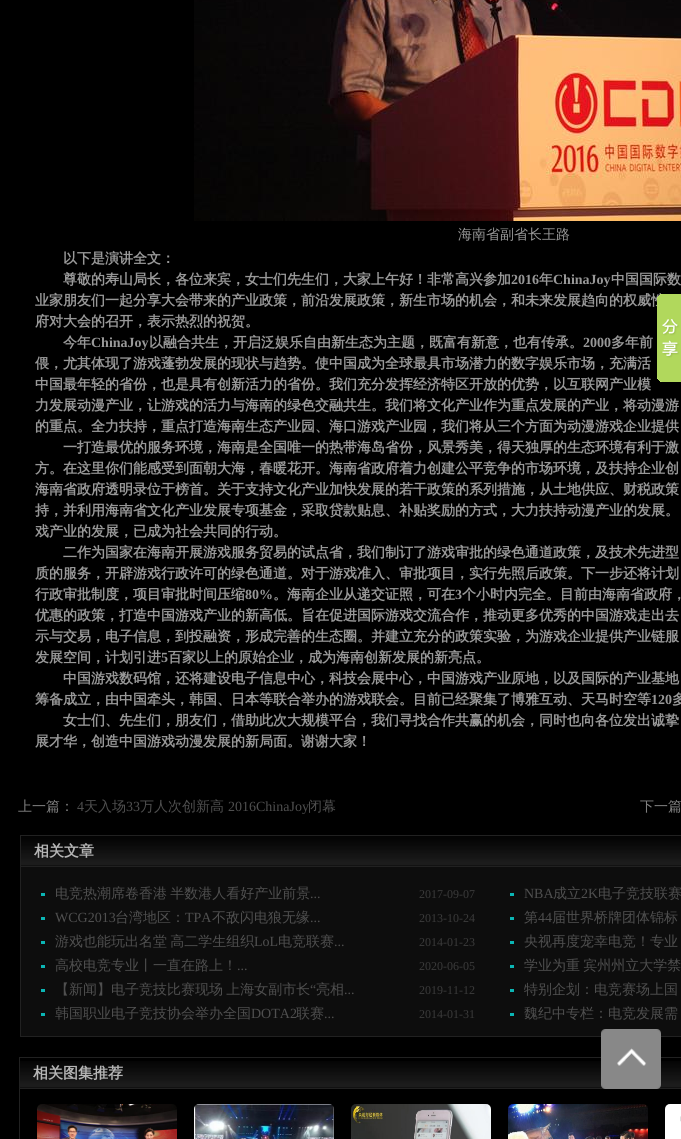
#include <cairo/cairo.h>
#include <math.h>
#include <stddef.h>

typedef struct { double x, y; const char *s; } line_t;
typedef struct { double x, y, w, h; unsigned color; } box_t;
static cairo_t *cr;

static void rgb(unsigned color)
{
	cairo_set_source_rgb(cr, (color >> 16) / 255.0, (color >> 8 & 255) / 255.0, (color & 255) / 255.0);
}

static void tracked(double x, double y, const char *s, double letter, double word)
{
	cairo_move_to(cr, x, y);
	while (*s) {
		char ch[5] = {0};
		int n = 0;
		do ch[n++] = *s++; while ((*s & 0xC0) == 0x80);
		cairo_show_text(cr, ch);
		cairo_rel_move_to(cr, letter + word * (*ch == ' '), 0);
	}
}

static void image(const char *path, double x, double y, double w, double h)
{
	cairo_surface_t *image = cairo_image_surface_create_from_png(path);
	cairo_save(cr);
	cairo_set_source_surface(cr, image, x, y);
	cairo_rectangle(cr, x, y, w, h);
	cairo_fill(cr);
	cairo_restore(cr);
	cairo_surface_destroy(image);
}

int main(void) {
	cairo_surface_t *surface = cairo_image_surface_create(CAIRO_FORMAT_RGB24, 681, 1139);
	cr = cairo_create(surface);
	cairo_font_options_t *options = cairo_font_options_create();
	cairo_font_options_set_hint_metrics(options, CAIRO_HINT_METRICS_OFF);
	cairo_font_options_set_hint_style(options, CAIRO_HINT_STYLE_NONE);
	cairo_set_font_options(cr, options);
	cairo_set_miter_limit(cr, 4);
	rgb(0x000000);
	cairo_paint(cr);
	image("img/1.png", 194, 0, 487, 221);
	rgb(0x0d0d0d);
	cairo_rectangle(cr, 21, 867, 660, 169);
	cairo_fill(cr);
	cairo_rectangle(cr, 20.5, 835.5, 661, 201);
	rgb(0x212121);
	cairo_set_line_width(cr, 1);
	cairo_stroke(cr);
	image("img/2.png", 21, 836, 660, 31);
	{
		static const box_t items[] = {
			{41, 893, 4, 3, 0x0bb5b4},
			{510, 893, 4, 3, 0x0bb5b4},
			{41, 917, 4, 3, 0x0bb5b4},
			{510, 917, 4, 3, 0x0bb5b4},
			{41, 941, 4, 3, 0x0bb5b4},
			{510, 941, 4, 3, 0x0bb5b4},
			{41, 965, 4, 3, 0x0bb5b4},
			{510, 965, 4, 3, 0x0bb5b4},
			{41, 989, 4, 3, 0x0bb5b4},
			{510, 989, 4, 3, 0x0bb5b4},
			{41, 1013, 4, 3, 0x0bb5b4},
			{510, 1013, 4, 3, 0x0bb5b4},
		};
		for (size_t i = 0; i < sizeof items / sizeof *items; i++) {
			rgb(items[i].color);
			cairo_rectangle(cr, items[i].x, items[i].y, items[i].w, items[i].h);
			cairo_fill(cr);
		}
	}
	cairo_rectangle(cr, 19.5, 1057.5, 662, 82);
	rgb(0x212121);
	cairo_stroke(cr);
	image("img/3.png", 20, 1061, 661, 28);
	image("img/4.png", 37, 1104, 140, 35);
	image("img/5.png", 194, 1104, 140, 35);
	image("img/6.png", 351, 1104, 140, 35);
	image("img/7.png", 508, 1104, 140, 35);
	image("img/8.png", 665, 1104, 16, 35);
	image("img/10.png", 601, 1029, 60, 60);
	cairo_select_font_face(cr, "WenQuanYi Zen Hei Medium", CAIRO_FONT_SLANT_NORMAL, CAIRO_FONT_WEIGHT_NORMAL);
	cairo_set_font_size(cr, 14);
	rgb(0x989898);
	cairo_move_to(cr, 458, 239);
	cairo_show_text(cr, "海南省副省长王路");
	cairo_select_font_face(cr, "WenQuanYi Zen Hei", CAIRO_FONT_SLANT_NORMAL, CAIRO_FONT_WEIGHT_BOLD);
	cairo_move_to(cr, 63, 263);
	cairo_show_text(cr, "以下是演讲全文：");
	cairo_move_to(cr, 63, 284);
	cairo_show_text(cr, "尊敬的寿山局长，各位来宾，女士们先生们，大家上午好！非常高兴参加");
	cairo_select_font_face(cr, "Liberation Serif", CAIRO_FONT_SLANT_NORMAL, CAIRO_FONT_WEIGHT_BOLD);
	cairo_move_to(cr, 511, 284);
	cairo_show_text(cr, "2016");
	cairo_select_font_face(cr, "WenQuanYi Zen Hei", CAIRO_FONT_SLANT_NORMAL, CAIRO_FONT_WEIGHT_BOLD);
	cairo_move_to(cr, 539, 284);
	cairo_show_text(cr, "年");
	cairo_select_font_face(cr, "Liberation Serif", CAIRO_FONT_SLANT_NORMAL, CAIRO_FONT_WEIGHT_BOLD);
	cairo_move_to(cr, 553, 284);
	cairo_show_text(cr, "ChinaJoy");
	cairo_select_font_face(cr, "WenQuanYi Zen Hei", CAIRO_FONT_SLANT_NORMAL, CAIRO_FONT_WEIGHT_BOLD);
	{
		static const line_t items[] = {
			{611, 284, "中国国际数"},
			{35, 305, "业家朋友们一起分享大会带来的产业政策，前沿发展政策，新生市场的机会，和未来发展趋向的权威性"},
			{35, 326, "府对大会的召开，表示热烈的祝贺。"},
			{63, 347, "今年"},
		};
		for (size_t i = 0; i < sizeof items / sizeof *items; i++) {
			cairo_move_to(cr, items[i].x, items[i].y);
			cairo_show_text(cr, items[i].s);
		}
	}
	cairo_select_font_face(cr, "Liberation Serif", CAIRO_FONT_SLANT_NORMAL, CAIRO_FONT_WEIGHT_BOLD);
	cairo_move_to(cr, 91, 347);
	cairo_show_text(cr, "ChinaJoy");
	cairo_select_font_face(cr, "WenQuanYi Zen Hei", CAIRO_FONT_SLANT_NORMAL, CAIRO_FONT_WEIGHT_BOLD);
	cairo_move_to(cr, 149, 347);
	cairo_show_text(cr, "以融合共生，开启泛娱乐自由新生态为主题，既富有新意，也有传承。");
	cairo_select_font_face(cr, "Liberation Serif", CAIRO_FONT_SLANT_NORMAL, CAIRO_FONT_WEIGHT_BOLD);
	cairo_move_to(cr, 583, 347);
	cairo_show_text(cr, "2000");
	cairo_select_font_face(cr, "WenQuanYi Zen Hei", CAIRO_FONT_SLANT_NORMAL, CAIRO_FONT_WEIGHT_BOLD);
	{
		static const line_t items[] = {
			{611, 347, "多年前"},
			{35, 368, "偎，尤其体现了游戏蓬勃发展的现状与趋势。使中国成为全球最具市场潜力的数字娱乐市场，充满活"},
			{35, 389, "中国最年轻的省份，也是具有创新活力的省份。我们充分发挥经济特区开放的优势，以互联网产业模"},
			{35, 410, "力发展动漫产业，让游戏的活力与海南的绿色交融共生。我们将文化产业作为重点发展的产业，将动漫游"},
			{35, 431, "的重点。全力扶持，重点打造海南生态产业园、海口游戏产业园，我们将从三个方面为动漫游戏企业提供"},
			{63, 452, "一打造最优的服务环境，海南是全国唯一的热带海岛省份，风景秀美，得天独厚的生态环境有利于激"},
			{35, 473, "方。在这里你们能感受到面朝大海，春暖花开。海南省政府着力创建公平竞争的市场环境，及扶持企业创"},
			{35, 494, "海南省政府透明录位于榜首。关于支持文化产业加快发展的若干政策的系列措施，从土地供应、财税政策"},
			{35, 515, "持，并利用海南省文化产业发展专项基金，采取贷款贴息、补贴奖励的方式，大力扶持动漫产业的发展。"},
			{35, 536, "戏产业的发展，已成为社会共同的行动。"},
			{63, 557, "二作为国家在海南开展游戏服务贸易的试点省，我们制订了游戏审批的绿色通道政策，及技术先进型"},
			{35, 578, "质的服务，开辟游戏行政许可的绿色通道。对于游戏准入、审批项目，实行先照后政策。下一步还将计划"},
			{35, 599, "行政审批制度，项目审批时间压缩"},
		};
		for (size_t i = 0; i < sizeof items / sizeof *items; i++) {
			cairo_move_to(cr, items[i].x, items[i].y);
			cairo_show_text(cr, items[i].s);
		}
	}
	cairo_select_font_face(cr, "Liberation Serif", CAIRO_FONT_SLANT_NORMAL, CAIRO_FONT_WEIGHT_BOLD);
	cairo_move_to(cr, 245, 599);
	cairo_show_text(cr, "80%");
	cairo_select_font_face(cr, "WenQuanYi Zen Hei", CAIRO_FONT_SLANT_NORMAL, CAIRO_FONT_WEIGHT_BOLD);
	cairo_move_to(cr, 273, 599);
	cairo_show_text(cr, "。海南企业从递交证照，可在");
	cairo_select_font_face(cr, "Liberation Serif", CAIRO_FONT_SLANT_NORMAL, CAIRO_FONT_WEIGHT_BOLD);
	cairo_move_to(cr, 455, 599);
	cairo_show_text(cr, "3");
	cairo_select_font_face(cr, "WenQuanYi Zen Hei", CAIRO_FONT_SLANT_NORMAL, CAIRO_FONT_WEIGHT_BOLD);
	{
		static const line_t items[] = {
			{462, 599, "个小时内完全。目前由海南省政府，"},
			{35, 620, "优惠的政策，打造中国游戏产业的新高低。旨在促进国际游戏交流合作，推动更多优秀的中国游戏走出去"},
			{35, 641, "示与交易，电子信息，到投融资，形成完善的生态圈。并建立充分的政策实验，为游戏企业提供产业链服"},
			{35, 662, "发展空间，计划引进"},
		};
		for (size_t i = 0; i < sizeof items / sizeof *items; i++) {
			cairo_move_to(cr, items[i].x, items[i].y);
			cairo_show_text(cr, items[i].s);
		}
	}
	cairo_select_font_face(cr, "Liberation Serif", CAIRO_FONT_SLANT_NORMAL, CAIRO_FONT_WEIGHT_BOLD);
	cairo_move_to(cr, 161, 662);
	cairo_show_text(cr, "5");
	cairo_select_font_face(cr, "WenQuanYi Zen Hei", CAIRO_FONT_SLANT_NORMAL, CAIRO_FONT_WEIGHT_BOLD);
	{
		static const line_t items[] = {
			{168, 662, "百家以上的原始企业，成为海南创新发展的新亮点。"},
			{63, 683, "中国游戏数码馆，还将建设电子信息中心，科技会展中心，中国游戏产业原地，以及国际的产业基地"},
			{35, 704, "筹备成立，由中国牵头，韩国、日本等联合举办的游戏联会。目前已经聚集了博雅互动、天马时空等"},
		};
		for (size_t i = 0; i < sizeof items / sizeof *items; i++) {
			cairo_move_to(cr, items[i].x, items[i].y);
			cairo_show_text(cr, items[i].s);
		}
	}
	cairo_select_font_face(cr, "Liberation Serif", CAIRO_FONT_SLANT_NORMAL, CAIRO_FONT_WEIGHT_BOLD);
	cairo_move_to(cr, 651, 704);
	cairo_show_text(cr, "120");
	cairo_select_font_face(cr, "WenQuanYi Zen Hei", CAIRO_FONT_SLANT_NORMAL, CAIRO_FONT_WEIGHT_BOLD);
	{
		static const line_t items[] = {
			{672, 704, "多"},
			{63, 725, "女士们、先生们，朋友们，借助此次大规模平台，我们寻找合作共赢的机会，同时也向各位发出诚挚"},
			{35, 746, "展才华，创造中国游戏动漫发展的新局面。谢谢大家！"},
		};
		for (size_t i = 0; i < sizeof items / sizeof *items; i++) {
			cairo_move_to(cr, items[i].x, items[i].y);
			cairo_show_text(cr, items[i].s);
		}
	}
	cairo_select_font_face(cr, "WenQuanYi Zen Hei Medium", CAIRO_FONT_SLANT_NORMAL, CAIRO_FONT_WEIGHT_NORMAL);
	rgb(0x808080);
	cairo_move_to(cr, 18, 811);
	cairo_show_text(cr, "上一篇：");
	cairo_select_font_face(cr, "Liberation Serif", CAIRO_FONT_SLANT_NORMAL, CAIRO_FONT_WEIGHT_NORMAL);
	rgb(0x4f4f4f);
	cairo_move_to(cr, 77, 811);
	cairo_show_text(cr, "4");
	cairo_select_font_face(cr, "WenQuanYi Zen Hei Medium", CAIRO_FONT_SLANT_NORMAL, CAIRO_FONT_WEIGHT_NORMAL);
	cairo_move_to(cr, 84, 811);
	cairo_show_text(cr, "天入场");
	cairo_select_font_face(cr, "Liberation Serif", CAIRO_FONT_SLANT_NORMAL, CAIRO_FONT_WEIGHT_NORMAL);
	cairo_move_to(cr, 126, 811);
	cairo_show_text(cr, "33");
	cairo_select_font_face(cr, "WenQuanYi Zen Hei Medium", CAIRO_FONT_SLANT_NORMAL, CAIRO_FONT_WEIGHT_NORMAL);
	cairo_move_to(cr, 140, 811);
	cairo_show_text(cr, "万人次创新高");
	cairo_select_font_face(cr, "Liberation Serif", CAIRO_FONT_SLANT_NORMAL, CAIRO_FONT_WEIGHT_NORMAL);
	cairo_move_to(cr, 228, 811);
	cairo_show_text(cr, "2016ChinaJoy");
	cairo_select_font_face(cr, "WenQuanYi Zen Hei Medium", CAIRO_FONT_SLANT_NORMAL, CAIRO_FONT_WEIGHT_NORMAL);
	cairo_move_to(cr, 308, 811);
	cairo_show_text(cr, "闭幕");
	rgb(0x808080);
	cairo_move_to(cr, 640, 811);
	cairo_show_text(cr, "下一篇");
	cairo_select_font_face(cr, "WenQuanYi Zen Hei", CAIRO_FONT_SLANT_NORMAL, CAIRO_FONT_WEIGHT_BOLD);
	cairo_set_font_size(cr, 15);
	rgb(0xb5b5b5);
	cairo_move_to(cr, 34, 856);
	cairo_show_text(cr, "相关文章");
	cairo_select_font_face(cr, "WenQuanYi Zen Hei Medium", CAIRO_FONT_SLANT_NORMAL, CAIRO_FONT_WEIGHT_NORMAL);
	cairo_set_font_size(cr, 14);
	rgb(0x4f4f4f);
	tracked(55, 898, "电竞热潮席卷香港 半数港人看好产业前景", 0, -1);
	cairo_select_font_face(cr, "Liberation Serif", CAIRO_FONT_SLANT_NORMAL, CAIRO_FONT_WEIGHT_NORMAL);
	cairo_move_to(cr, 310, 898);
	cairo_show_text(cr, "...");
	cairo_set_font_size(cr, 12);
	rgb(0x3a3a3a);
	cairo_move_to(cr, 419, 898);
	cairo_show_text(cr, "2017-09-07");
	cairo_set_font_size(cr, 14);
	rgb(0x4f4f4f);
	cairo_move_to(cr, 524, 898);
	cairo_show_text(cr, "NBA");
	cairo_select_font_face(cr, "WenQuanYi Zen Hei Medium", CAIRO_FONT_SLANT_NORMAL, CAIRO_FONT_WEIGHT_NORMAL);
	cairo_move_to(cr, 553, 898);
	cairo_show_text(cr, "成立");
	cairo_select_font_face(cr, "Liberation Serif", CAIRO_FONT_SLANT_NORMAL, CAIRO_FONT_WEIGHT_NORMAL);
	cairo_move_to(cr, 581, 898);
	cairo_show_text(cr, "2K");
	cairo_select_font_face(cr, "WenQuanYi Zen Hei Medium", CAIRO_FONT_SLANT_NORMAL, CAIRO_FONT_WEIGHT_NORMAL);
	cairo_move_to(cr, 598, 898);
	cairo_show_text(cr, "电子竞技联赛");
	cairo_select_font_face(cr, "Liberation Serif", CAIRO_FONT_SLANT_NORMAL, CAIRO_FONT_WEIGHT_NORMAL);
	cairo_move_to(cr, 55, 922);
	cairo_show_text(cr, "WCG2013");
	cairo_select_font_face(cr, "WenQuanYi Zen Hei Medium", CAIRO_FONT_SLANT_NORMAL, CAIRO_FONT_WEIGHT_NORMAL);
	cairo_move_to(cr, 115, 922);
	cairo_show_text(cr, "台湾地区：");
	cairo_select_font_face(cr, "Liberation Serif", CAIRO_FONT_SLANT_NORMAL, CAIRO_FONT_WEIGHT_NORMAL);
	cairo_move_to(cr, 185, 922);
	cairo_show_text(cr, "TPA");
	cairo_select_font_face(cr, "WenQuanYi Zen Hei Medium", CAIRO_FONT_SLANT_NORMAL, CAIRO_FONT_WEIGHT_NORMAL);
	cairo_move_to(cr, 212, 922);
	cairo_show_text(cr, "不敌闪电狼无缘");
	cairo_select_font_face(cr, "Liberation Serif", CAIRO_FONT_SLANT_NORMAL, CAIRO_FONT_WEIGHT_NORMAL);
	cairo_move_to(cr, 310, 922);
	cairo_show_text(cr, "...");
	cairo_set_font_size(cr, 12);
	rgb(0x3a3a3a);
	cairo_move_to(cr, 419, 922);
	cairo_show_text(cr, "2013-10-24");
	cairo_select_font_face(cr, "WenQuanYi Zen Hei Medium", CAIRO_FONT_SLANT_NORMAL, CAIRO_FONT_WEIGHT_NORMAL);
	cairo_set_font_size(cr, 14);
	rgb(0x4f4f4f);
	cairo_move_to(cr, 524, 922);
	cairo_show_text(cr, "第");
	cairo_select_font_face(cr, "Liberation Serif", CAIRO_FONT_SLANT_NORMAL, CAIRO_FONT_WEIGHT_NORMAL);
	cairo_move_to(cr, 538, 922);
	cairo_show_text(cr, "44");
	cairo_select_font_face(cr, "WenQuanYi Zen Hei Medium", CAIRO_FONT_SLANT_NORMAL, CAIRO_FONT_WEIGHT_NORMAL);
	cairo_move_to(cr, 552, 922);
	cairo_show_text(cr, "届世界桥牌团体锦标");
	tracked(55, 946, "游戏也能玩出名堂 高二学生组织", 0, -1);
	cairo_select_font_face(cr, "Liberation Serif", CAIRO_FONT_SLANT_NORMAL, CAIRO_FONT_WEIGHT_NORMAL);
	cairo_move_to(cr, 254, 946);
	cairo_show_text(cr, "LoL");
	cairo_select_font_face(cr, "WenQuanYi Zen Hei Medium", CAIRO_FONT_SLANT_NORMAL, CAIRO_FONT_WEIGHT_NORMAL);
	cairo_move_to(cr, 278, 946);
	cairo_show_text(cr, "电竞联赛");
	cairo_select_font_face(cr, "Liberation Serif", CAIRO_FONT_SLANT_NORMAL, CAIRO_FONT_WEIGHT_NORMAL);
	cairo_move_to(cr, 334, 946);
	cairo_show_text(cr, "...");
	cairo_set_font_size(cr, 12);
	rgb(0x3a3a3a);
	cairo_move_to(cr, 419, 946);
	cairo_show_text(cr, "2014-01-23");
	cairo_select_font_face(cr, "WenQuanYi Zen Hei Medium", CAIRO_FONT_SLANT_NORMAL, CAIRO_FONT_WEIGHT_NORMAL);
	cairo_set_font_size(cr, 14);
	rgb(0x4f4f4f);
	cairo_move_to(cr, 524, 946);
	cairo_show_text(cr, "央视再度宠幸电竞！专业");
	cairo_move_to(cr, 55, 970);
	cairo_show_text(cr, "高校电竞专业丨一直在路上！");
	cairo_select_font_face(cr, "Liberation Serif", CAIRO_FONT_SLANT_NORMAL, CAIRO_FONT_WEIGHT_NORMAL);
	cairo_move_to(cr, 237, 970);
	cairo_show_text(cr, "...");
	cairo_set_font_size(cr, 12);
	rgb(0x3a3a3a);
	cairo_move_to(cr, 419, 970);
	cairo_show_text(cr, "2020-06-05");
	cairo_select_font_face(cr, "WenQuanYi Zen Hei Medium", CAIRO_FONT_SLANT_NORMAL, CAIRO_FONT_WEIGHT_NORMAL);
	cairo_set_font_size(cr, 14);
	rgb(0x4f4f4f);
	tracked(524, 970, "学业为重 宾州州立大学禁", 0, -1);
	tracked(55, 994, "【新闻】电子竞技比赛现场 上海女副市长", 0, -1);
	cairo_select_font_face(cr, "Liberation Serif", CAIRO_FONT_SLANT_NORMAL, CAIRO_FONT_WEIGHT_NORMAL);
	cairo_move_to(cr, 310, 994);
	cairo_show_text(cr, "“");
	cairo_select_font_face(cr, "WenQuanYi Zen Hei Medium", CAIRO_FONT_SLANT_NORMAL, CAIRO_FONT_WEIGHT_NORMAL);
	cairo_move_to(cr, 316, 994);
	cairo_show_text(cr, "亮相");
	cairo_select_font_face(cr, "Liberation Serif", CAIRO_FONT_SLANT_NORMAL, CAIRO_FONT_WEIGHT_NORMAL);
	cairo_move_to(cr, 344, 994);
	cairo_show_text(cr, "...");
	cairo_set_font_size(cr, 12);
	rgb(0x3a3a3a);
	cairo_move_to(cr, 419, 994);
	cairo_show_text(cr, "2019-11-12");
	cairo_select_font_face(cr, "WenQuanYi Zen Hei Medium", CAIRO_FONT_SLANT_NORMAL, CAIRO_FONT_WEIGHT_NORMAL);
	cairo_set_font_size(cr, 14);
	rgb(0x4f4f4f);
	cairo_move_to(cr, 524, 994);
	cairo_show_text(cr, "特别企划：电竞赛场上国");
	cairo_move_to(cr, 55, 1018);
	cairo_show_text(cr, "韩国职业电子竞技协会举办全国");
	cairo_select_font_face(cr, "Liberation Serif", CAIRO_FONT_SLANT_NORMAL, CAIRO_FONT_WEIGHT_NORMAL);
	cairo_move_to(cr, 251, 1018);
	cairo_show_text(cr, "DOTA2");
	cairo_select_font_face(cr, "WenQuanYi Zen Hei Medium", CAIRO_FONT_SLANT_NORMAL, CAIRO_FONT_WEIGHT_NORMAL);
	cairo_move_to(cr, 296, 1018);
	cairo_show_text(cr, "联赛");
	cairo_select_font_face(cr, "Liberation Serif", CAIRO_FONT_SLANT_NORMAL, CAIRO_FONT_WEIGHT_NORMAL);
	cairo_move_to(cr, 324, 1018);
	cairo_show_text(cr, "...");
	cairo_set_font_size(cr, 12);
	rgb(0x3a3a3a);
	cairo_move_to(cr, 419, 1018);
	cairo_show_text(cr, "2014-01-31");
	cairo_select_font_face(cr, "WenQuanYi Zen Hei Medium", CAIRO_FONT_SLANT_NORMAL, CAIRO_FONT_WEIGHT_NORMAL);
	cairo_set_font_size(cr, 14);
	rgb(0x4f4f4f);
	tracked(524, 1018, "魏纪中专栏：电竞发展需", 0, -1);
	cairo_select_font_face(cr, "WenQuanYi Zen Hei", CAIRO_FONT_SLANT_NORMAL, CAIRO_FONT_WEIGHT_BOLD);
	cairo_set_font_size(cr, 15);
	rgb(0xb5b5b5);
	cairo_move_to(cr, 33, 1078);
	cairo_show_text(cr, "相关图集推荐");
	image("img/9.png", 657, 294, 24, 88);
	cairo_surface_write_to_png(surface, "page.png");
	cairo_font_options_destroy(options);
	cairo_destroy(cr);
	cairo_surface_destroy(surface);
	return 0;
}
